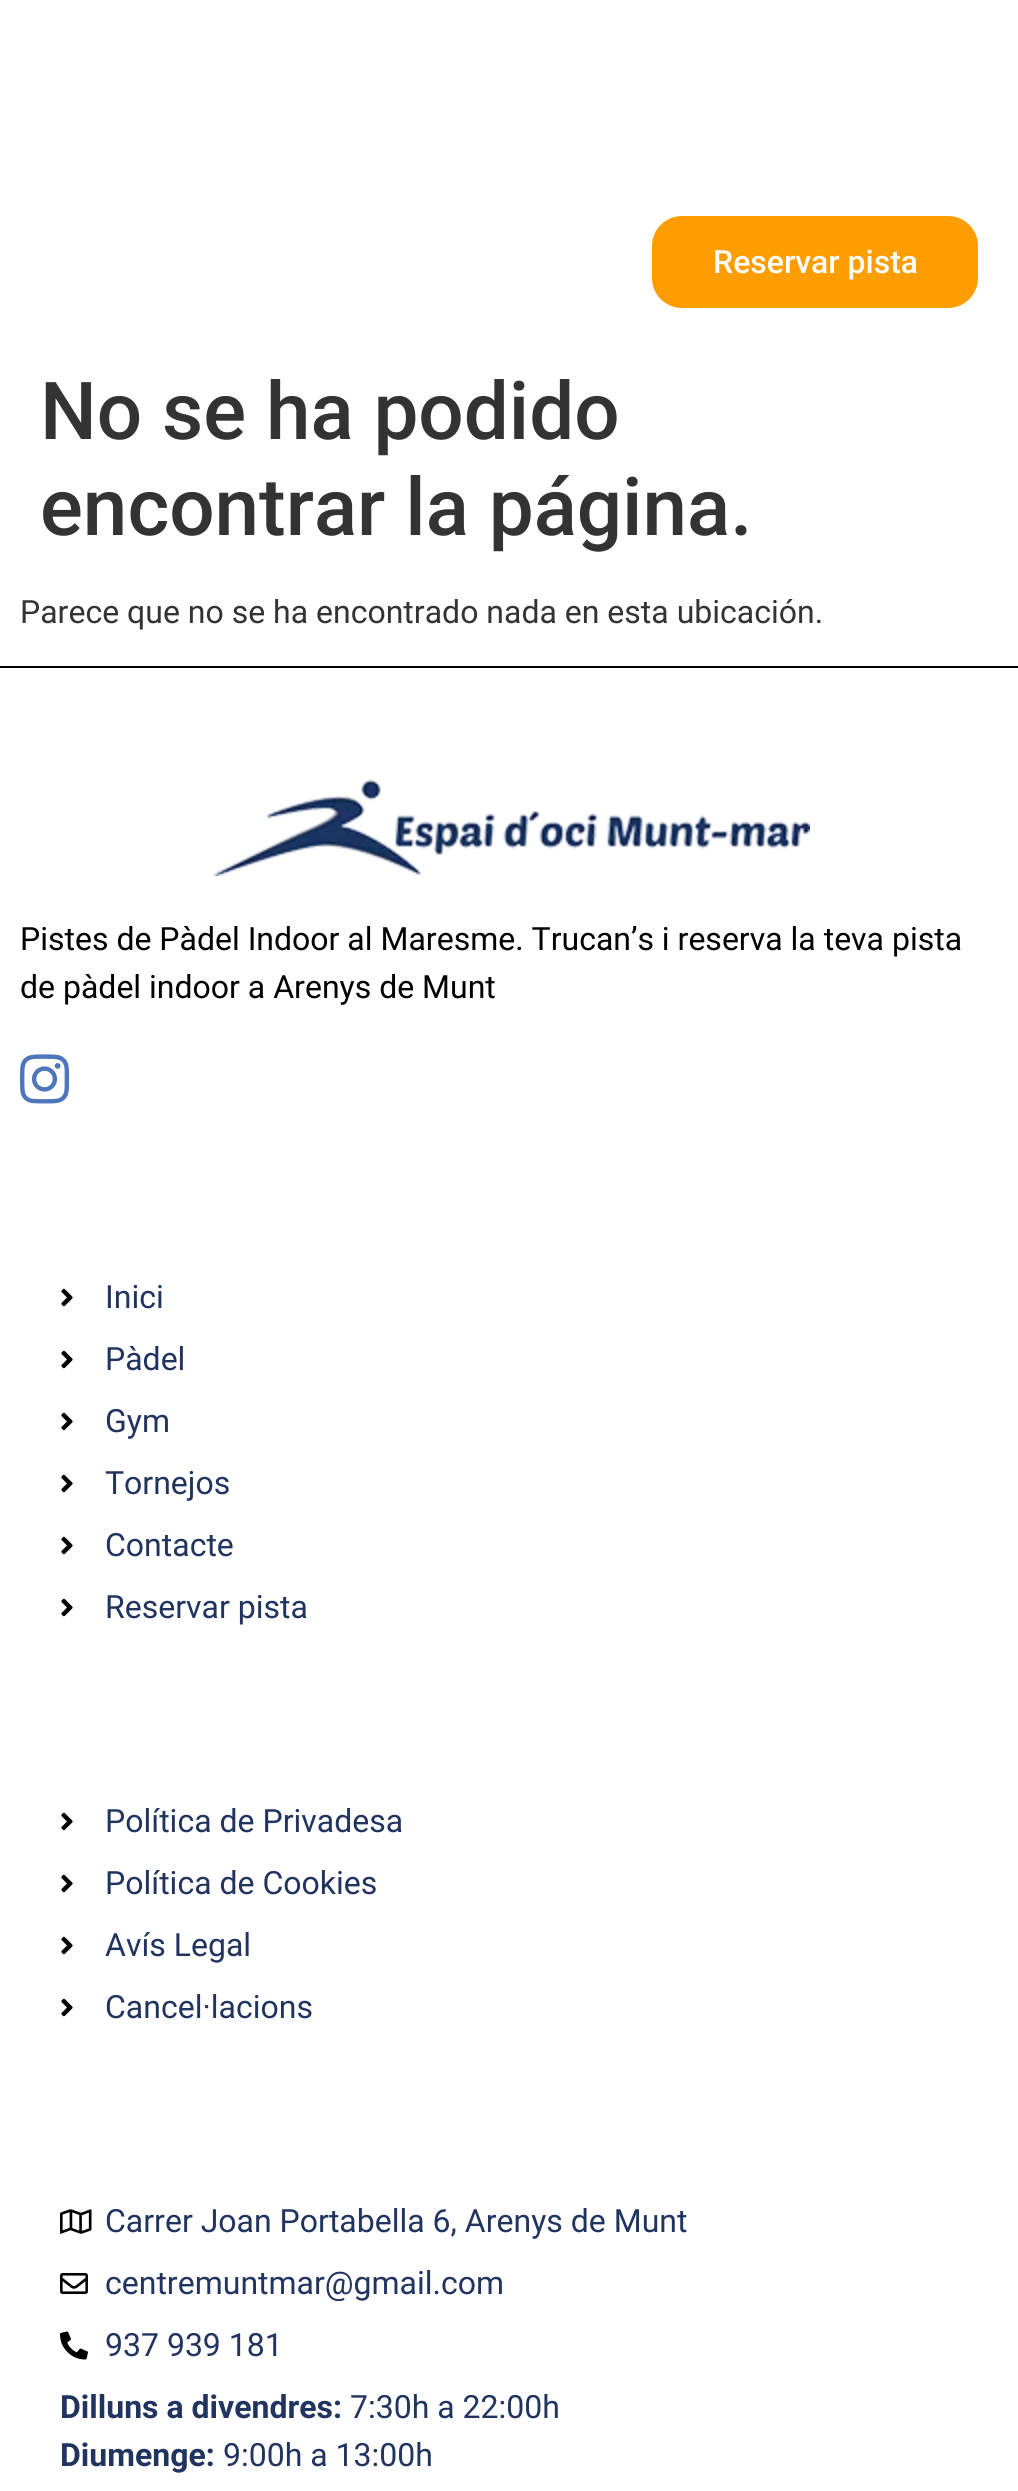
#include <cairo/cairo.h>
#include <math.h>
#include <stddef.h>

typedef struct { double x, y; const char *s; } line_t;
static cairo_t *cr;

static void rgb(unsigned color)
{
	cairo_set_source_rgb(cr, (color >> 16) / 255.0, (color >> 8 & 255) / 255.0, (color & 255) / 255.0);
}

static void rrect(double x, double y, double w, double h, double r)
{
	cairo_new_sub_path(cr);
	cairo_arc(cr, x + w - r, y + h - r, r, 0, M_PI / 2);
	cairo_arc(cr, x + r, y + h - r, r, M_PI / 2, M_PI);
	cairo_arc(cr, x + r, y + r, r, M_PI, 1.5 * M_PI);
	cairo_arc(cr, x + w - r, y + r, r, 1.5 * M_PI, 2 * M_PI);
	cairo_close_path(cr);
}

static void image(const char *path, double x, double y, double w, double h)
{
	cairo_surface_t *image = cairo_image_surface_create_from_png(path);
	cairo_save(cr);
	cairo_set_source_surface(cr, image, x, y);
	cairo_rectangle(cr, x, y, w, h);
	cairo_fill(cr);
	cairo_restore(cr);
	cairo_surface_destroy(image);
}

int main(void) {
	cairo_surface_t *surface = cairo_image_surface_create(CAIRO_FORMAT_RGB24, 1018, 2491);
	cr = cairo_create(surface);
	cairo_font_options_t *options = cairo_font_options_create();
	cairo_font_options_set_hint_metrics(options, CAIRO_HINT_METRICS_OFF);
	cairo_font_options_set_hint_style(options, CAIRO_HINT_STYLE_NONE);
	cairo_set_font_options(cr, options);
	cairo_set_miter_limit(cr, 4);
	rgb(0xffffff);
	cairo_paint(cr);
	rgb(0xfe9d00);
	rrect(652, 216, 326, 92, 30);
	cairo_fill(cr);
	rgb(0x000000);
	cairo_rectangle(cr, 0, 666, 1018, 2);
	cairo_fill(cr);
	image("img/1.png", 213, 779, 597, 97);
	image("img/2.png", 20, 1054, 50, 50);
	image("img/3.png", 61, 1288, 12, 19);
	image("img/3.png", 61, 1350, 12, 19);
	image("img/3.png", 61, 1412, 12, 19);
	image("img/3.png", 61, 1474, 12, 19);
	image("img/3.png", 61, 1536, 12, 19);
	image("img/3.png", 61, 1598, 12, 19);
	image("img/3.png", 61, 1812, 12, 19);
	image("img/3.png", 61, 1874, 12, 19);
	image("img/3.png", 61, 1936, 12, 19);
	image("img/3.png", 61, 1998, 12, 19);
	image("img/4.png", 60, 2209, 32, 25);
	image("img/5.png", 60, 2273, 28, 21);
	image("img/6.png", 60, 2331, 28, 29);
	cairo_select_font_face(cr, "Roboto Medium", CAIRO_FONT_SLANT_NORMAL, CAIRO_FONT_WEIGHT_NORMAL);
	cairo_set_font_size(cr, 32);
	rgb(0xffffff);
	cairo_move_to(cr, 713, 273);
	cairo_show_text(cr, "Reservar pista");
	cairo_set_font_size(cr, 80);
	rgb(0x333333);
	cairo_move_to(cr, 40, 439);
	cairo_show_text(cr, "No se ha podido");
	cairo_move_to(cr, 40, 535);
	cairo_show_text(cr, "encontrar la página.");
	cairo_select_font_face(cr, "Roboto", CAIRO_FONT_SLANT_NORMAL, CAIRO_FONT_WEIGHT_NORMAL);
	cairo_set_font_size(cr, 32);
	cairo_move_to(cr, 20, 623);
	cairo_show_text(cr, "Parece que no se ha encontrado nada en esta ubicación.");
	rgb(0x000000);
	cairo_move_to(cr, 20, 950);
	cairo_show_text(cr, "Pistes de Pàdel Indoor al Maresme. Trucan’s i reserva la teva pista");
	cairo_move_to(cr, 20, 998);
	cairo_show_text(cr, "de pàdel indoor a Arenys de Munt");
	rgb(0x21345f);
	{
		static const line_t items[] = {
			{105, 1308, "Inici"},
			{105, 1370, "Pàdel"},
			{105, 1432, "Gym"},
			{105, 1494, "Tornejos"},
			{105, 1556, "Contacte"},
			{105, 1618, "Reservar pista"},
			{105, 1832, "Política de Privadesa"},
			{105, 1894, "Política de Cookies"},
			{105, 1956, "Avís Legal"},
			{105, 2018, "Cancel·lacions"},
			{105, 2232, "Carrer Joan Portabella 6, Arenys de Munt"},
			{105, 2294, "centremuntmar@gmail.com"},
			{105, 2356, "937 939 181"},
		};
		for (size_t i = 0; i < sizeof items / sizeof *items; i++) {
			cairo_move_to(cr, items[i].x, items[i].y);
			cairo_show_text(cr, items[i].s);
		}
	}
	cairo_select_font_face(cr, "Roboto", CAIRO_FONT_SLANT_NORMAL, CAIRO_FONT_WEIGHT_BOLD);
	cairo_move_to(cr, 60, 2418);
	cairo_show_text(cr, "Dilluns a divendres:");
	cairo_select_font_face(cr, "Roboto", CAIRO_FONT_SLANT_NORMAL, CAIRO_FONT_WEIGHT_NORMAL);
	cairo_move_to(cr, 350, 2418);
	cairo_show_text(cr, "7:30h a 22:00h");
	cairo_select_font_face(cr, "Roboto", CAIRO_FONT_SLANT_NORMAL, CAIRO_FONT_WEIGHT_BOLD);
	cairo_move_to(cr, 60, 2466);
	cairo_show_text(cr, "Diumenge:");
	cairo_select_font_face(cr, "Roboto", CAIRO_FONT_SLANT_NORMAL, CAIRO_FONT_WEIGHT_NORMAL);
	cairo_move_to(cr, 223, 2466);
	cairo_show_text(cr, "9:00h a 13:00h");
	cairo_surface_write_to_png(surface, "page.png");
	cairo_font_options_destroy(options);
	cairo_destroy(cr);
	cairo_surface_destroy(surface);
	return 0;
}
